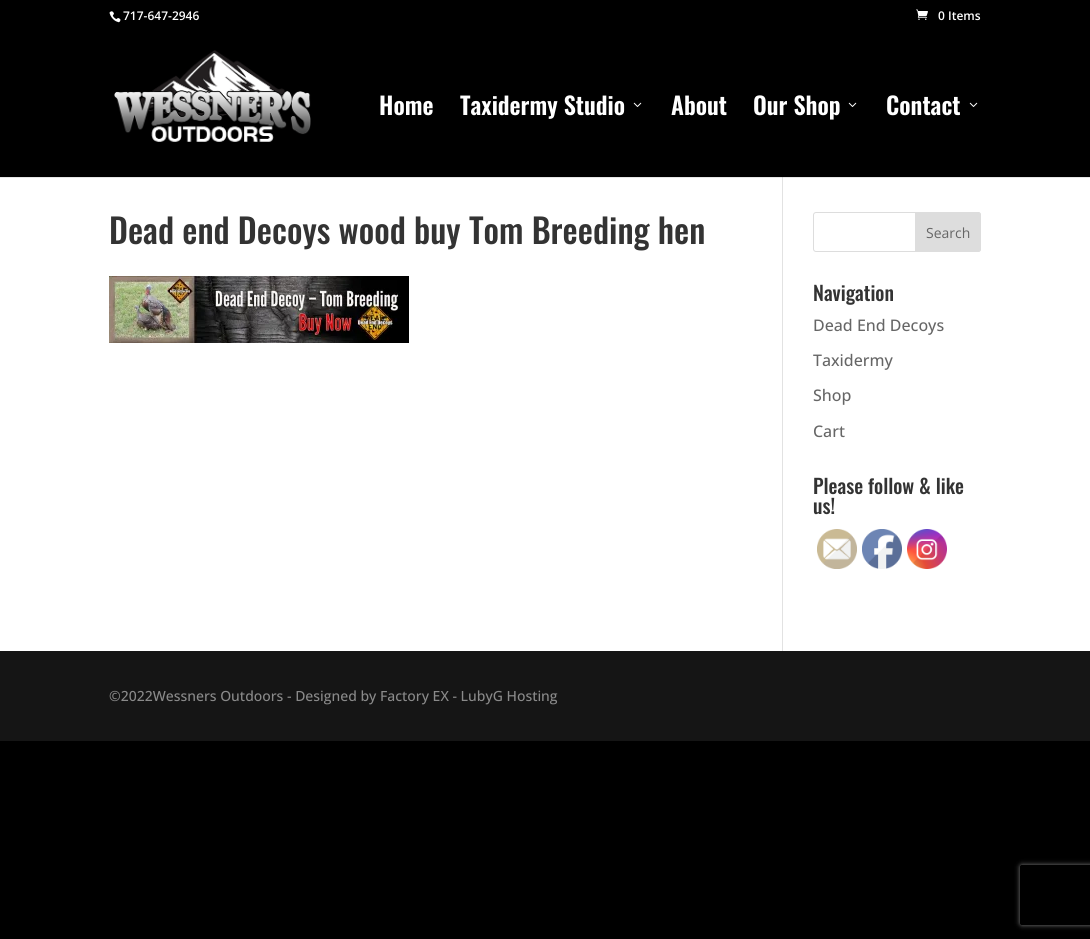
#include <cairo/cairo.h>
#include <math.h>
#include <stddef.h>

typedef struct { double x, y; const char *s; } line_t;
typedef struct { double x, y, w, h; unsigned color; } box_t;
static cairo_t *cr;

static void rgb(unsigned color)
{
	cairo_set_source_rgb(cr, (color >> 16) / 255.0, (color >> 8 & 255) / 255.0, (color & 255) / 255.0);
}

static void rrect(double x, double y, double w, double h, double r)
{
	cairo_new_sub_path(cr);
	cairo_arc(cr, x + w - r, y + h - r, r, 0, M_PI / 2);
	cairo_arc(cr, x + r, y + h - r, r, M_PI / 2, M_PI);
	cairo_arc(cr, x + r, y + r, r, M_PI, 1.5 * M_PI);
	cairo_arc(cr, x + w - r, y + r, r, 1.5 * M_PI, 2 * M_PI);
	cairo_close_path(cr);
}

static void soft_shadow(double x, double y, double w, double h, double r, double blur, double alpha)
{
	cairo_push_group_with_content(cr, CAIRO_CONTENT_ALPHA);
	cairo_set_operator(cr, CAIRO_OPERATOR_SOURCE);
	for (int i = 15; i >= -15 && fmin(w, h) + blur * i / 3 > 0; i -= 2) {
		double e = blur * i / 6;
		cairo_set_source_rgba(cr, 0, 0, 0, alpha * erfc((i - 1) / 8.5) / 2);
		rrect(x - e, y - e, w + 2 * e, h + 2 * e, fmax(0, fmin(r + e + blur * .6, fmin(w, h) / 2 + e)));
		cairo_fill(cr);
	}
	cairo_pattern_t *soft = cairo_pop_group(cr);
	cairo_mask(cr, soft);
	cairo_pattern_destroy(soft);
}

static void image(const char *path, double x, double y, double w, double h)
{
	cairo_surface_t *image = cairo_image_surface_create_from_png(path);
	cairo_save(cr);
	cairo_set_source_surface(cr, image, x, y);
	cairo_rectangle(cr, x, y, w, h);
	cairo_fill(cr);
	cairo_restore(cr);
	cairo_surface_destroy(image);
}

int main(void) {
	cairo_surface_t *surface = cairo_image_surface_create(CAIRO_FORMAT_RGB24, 1090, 939);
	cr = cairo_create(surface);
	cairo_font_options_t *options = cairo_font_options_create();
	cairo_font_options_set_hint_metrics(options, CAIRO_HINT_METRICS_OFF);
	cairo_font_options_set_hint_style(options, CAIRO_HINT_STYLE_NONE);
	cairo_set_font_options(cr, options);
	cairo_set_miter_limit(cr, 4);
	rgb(0x000000);
	cairo_paint(cr);
	image("img/1.png", 109, 11, 12, 12);
	image("img/2.png", 916, 9, 12, 11);
	image("img/3.png", 114, 50, 197, 92);
	image("img/4.png", 633, 102, 9, 5);
	image("img/4.png", 848, 102, 9, 5);
	image("img/4.png", 969, 102, 9, 5);
	{
		static const box_t items[] = {
			{0, 178, 1090, 473, 0xffffff},
			{0, 177, 1090, 1, 0xe6e6e6},
			{782, 178, 1, 473, 0xe2e2e2},
			{782, 177, 1, 1, 0xcbcbcb},
		};
		for (size_t i = 0; i < sizeof items / sizeof *items; i++) {
			rgb(items[i].color);
			cairo_rectangle(cr, items[i].x, items[i].y, items[i].w, items[i].h);
			cairo_fill(cr);
		}
	}
	image("img/5.png", 109, 276, 300, 67);
	rrect(813.5, 212.5, 167, 39, 2.5);
	rgb(0xdddddd);
	cairo_set_line_width(cr, 1);
	cairo_stroke(cr);
	cairo_new_path(cr);
	cairo_move_to(cr, 915.5, 212.5);
	cairo_line_to(cr, 978, 212.5);
	cairo_curve_to(cr, 979.5, 212.5, 980.5, 213.5, 980.5, 215);
	cairo_line_to(cr, 980.5, 249);
	cairo_curve_to(cr, 980.5, 250.5, 979.5, 251.5, 978, 251.5);
	cairo_line_to(cr, 915.5, 251.5);
	cairo_close_path(cr);
	cairo_fill_preserve(cr);
	cairo_stroke(cr);
	image("img/6.png", 817, 529, 40, 40);
	image("img/7.png", 862, 529, 40, 40);
	image("img/8.png", 907, 529, 40, 40);
	rgb(0x151515);
	cairo_rectangle(cr, 0, 651, 1090, 90);
	cairo_fill(cr);
	cairo_save(cr);
	cairo_set_fill_rule(cr, CAIRO_FILL_RULE_EVEN_ODD);
	cairo_new_path(cr);
	cairo_move_to(cr, 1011, 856);
	cairo_line_to(cr, 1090, 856);
	cairo_line_to(cr, 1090, 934);
	cairo_line_to(cr, 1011, 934);
	cairo_close_path(cr);
	cairo_move_to(cr, 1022, 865);
	cairo_line_to(cr, 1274, 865);
	cairo_curve_to(cr, 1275, 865, 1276, 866, 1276, 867);
	cairo_line_to(cr, 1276, 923);
	cairo_curve_to(cr, 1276, 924, 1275, 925, 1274, 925);
	cairo_line_to(cr, 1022, 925);
	cairo_curve_to(cr, 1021, 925, 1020, 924, 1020, 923);
	cairo_line_to(cr, 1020, 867);
	cairo_curve_to(cr, 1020, 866, 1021, 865, 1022, 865);
	cairo_close_path(cr);
	cairo_clip(cr);
	rgb(0x808080);
	soft_shadow(1020, 865, 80, 60, 2, 2.5, 1);
	cairo_restore(cr);
	cairo_select_font_face(cr, "Open Sans SemiBold", CAIRO_FONT_SLANT_NORMAL, CAIRO_FONT_WEIGHT_NORMAL);
	cairo_set_font_size(cr, 12);
	rgb(0xffffff);
	cairo_move_to(cr, 123, 20);
	cairo_show_text(cr, "717-647-2946");
	cairo_move_to(cr, 938, 20);
	cairo_show_text(cr, "0 Items");
	cairo_select_font_face(cr, "Oswald SemiBold", CAIRO_FONT_SLANT_NORMAL, CAIRO_FONT_WEIGHT_NORMAL);
	cairo_set_font_size(cr, 24);
	{
		static const line_t items[] = {
			{379, 115, "Home"},
			{460, 115, "Taxidermy Studio"},
			{671, 115, "About"},
			{753, 115, "Our Shop"},
			{886, 115, "Contact"},
		};
		for (size_t i = 0; i < sizeof items / sizeof *items; i++) {
			cairo_move_to(cr, items[i].x, items[i].y);
			cairo_show_text(cr, items[i].s);
		}
	}
	cairo_select_font_face(cr, "Oswald Medium", CAIRO_FONT_SLANT_NORMAL, CAIRO_FONT_WEIGHT_NORMAL);
	cairo_set_font_size(cr, 34);
	rgb(0x333333);
	cairo_move_to(cr, 109, 244);
	cairo_show_text(cr, "Dead end Decoys wood buy Tom Breeding hen");
	cairo_select_font_face(cr, "Open Sans", CAIRO_FONT_SLANT_NORMAL, CAIRO_FONT_WEIGHT_NORMAL);
	cairo_set_font_size(cr, 14);
	rgb(0x666666);
	cairo_move_to(cr, 926, 238);
	cairo_show_text(cr, "Search");
	cairo_select_font_face(cr, "Oswald Medium", CAIRO_FONT_SLANT_NORMAL, CAIRO_FONT_WEIGHT_NORMAL);
	cairo_set_font_size(cr, 20);
	rgb(0x333333);
	cairo_move_to(cr, 813, 301);
	cairo_show_text(cr, "Navigation");
	cairo_select_font_face(cr, "Open Sans Medium", CAIRO_FONT_SLANT_NORMAL, CAIRO_FONT_WEIGHT_NORMAL);
	cairo_set_font_size(cr, 16);
	rgb(0x666666);
	{
		static const line_t items[] = {
			{813, 331, "Dead End Decoys"},
			{813, 366, "Taxidermy"},
			{813, 401, "Shop"},
			{813, 437, "Cart"},
		};
		for (size_t i = 0; i < sizeof items / sizeof *items; i++) {
			cairo_move_to(cr, items[i].x, items[i].y);
			cairo_show_text(cr, items[i].s);
		}
	}
	cairo_select_font_face(cr, "Oswald Medium", CAIRO_FONT_SLANT_NORMAL, CAIRO_FONT_WEIGHT_NORMAL);
	cairo_set_font_size(cr, 20);
	rgb(0x333333);
	cairo_move_to(cr, 813, 494);
	cairo_show_text(cr, "Please follow & like");
	cairo_move_to(cr, 813, 514);
	cairo_show_text(cr, "us!");
	cairo_select_font_face(cr, "Open Sans Medium", CAIRO_FONT_SLANT_NORMAL, CAIRO_FONT_WEIGHT_NORMAL);
	cairo_set_font_size(cr, 14);
	rgb(0x8a8a8a);
	cairo_move_to(cr, 109, 701);
	cairo_show_text(cr, "©2022Wessners Outdoors - Designed by Factory EX - LubyG Hosting");
	cairo_surface_write_to_png(surface, "page.png");
	cairo_font_options_destroy(options);
	cairo_destroy(cr);
	cairo_surface_destroy(surface);
	return 0;
}
